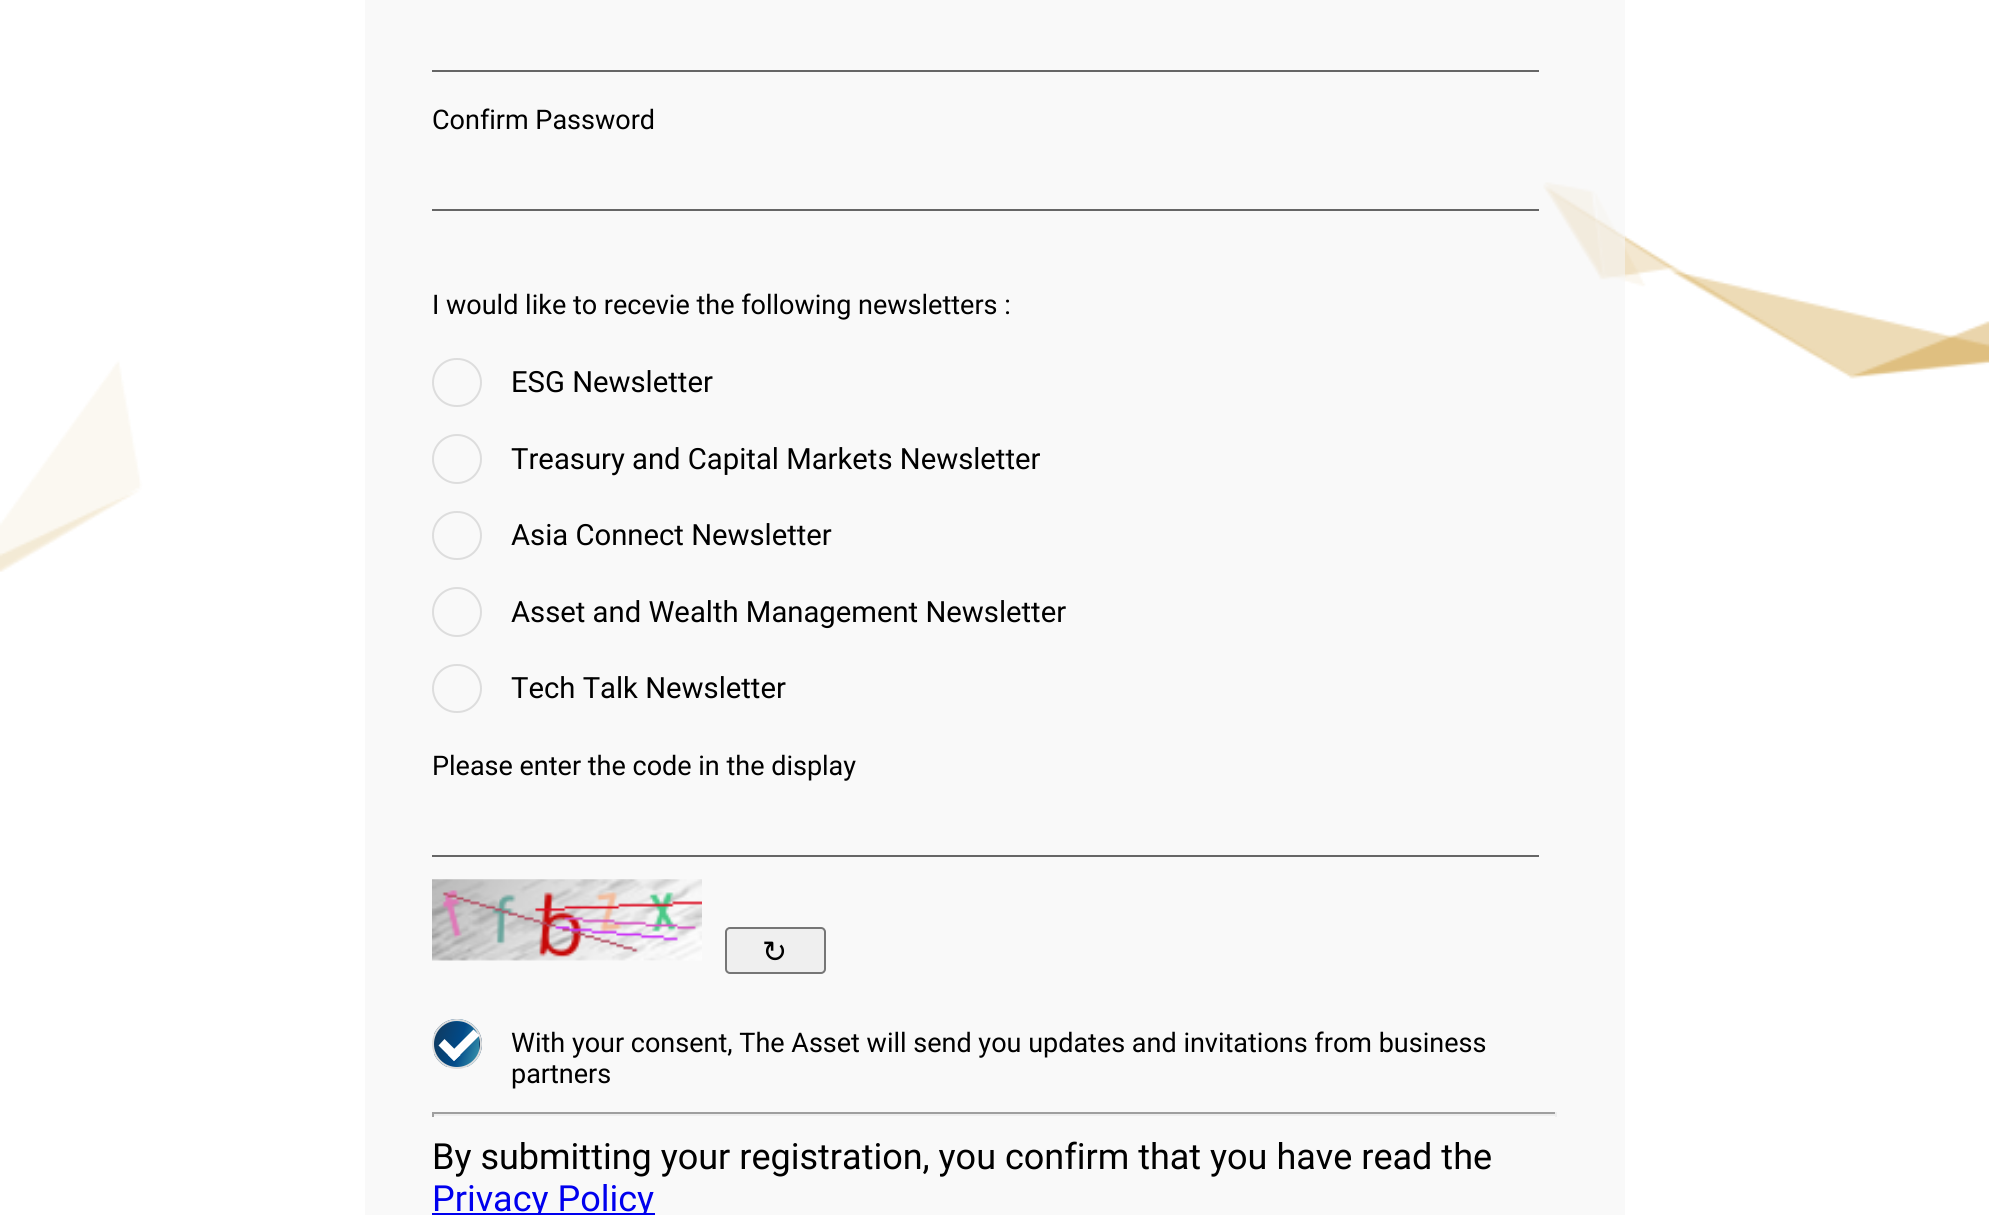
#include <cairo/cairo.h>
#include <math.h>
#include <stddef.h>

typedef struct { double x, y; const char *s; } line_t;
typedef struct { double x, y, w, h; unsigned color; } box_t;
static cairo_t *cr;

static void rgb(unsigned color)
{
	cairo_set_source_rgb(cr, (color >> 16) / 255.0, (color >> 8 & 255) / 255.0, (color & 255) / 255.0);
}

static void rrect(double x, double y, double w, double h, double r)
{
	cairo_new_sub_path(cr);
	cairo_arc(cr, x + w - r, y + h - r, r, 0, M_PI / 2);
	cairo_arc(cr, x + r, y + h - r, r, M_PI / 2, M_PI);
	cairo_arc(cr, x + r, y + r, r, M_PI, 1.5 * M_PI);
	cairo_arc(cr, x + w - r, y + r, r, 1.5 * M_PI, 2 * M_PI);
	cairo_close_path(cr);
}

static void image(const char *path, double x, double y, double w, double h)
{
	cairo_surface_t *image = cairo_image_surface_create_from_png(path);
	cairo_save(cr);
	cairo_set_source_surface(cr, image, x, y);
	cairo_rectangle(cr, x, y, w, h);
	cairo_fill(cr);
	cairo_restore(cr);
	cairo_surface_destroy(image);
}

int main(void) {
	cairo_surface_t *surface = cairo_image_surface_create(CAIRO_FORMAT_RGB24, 1989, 1215);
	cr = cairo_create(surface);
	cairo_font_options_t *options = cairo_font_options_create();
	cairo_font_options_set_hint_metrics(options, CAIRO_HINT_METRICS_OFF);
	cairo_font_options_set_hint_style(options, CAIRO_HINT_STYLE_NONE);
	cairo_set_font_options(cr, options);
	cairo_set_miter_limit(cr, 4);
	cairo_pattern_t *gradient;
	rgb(0xffffff);
	cairo_paint(cr);
	image("img/2.png", 0, 182, 1989, 390);
	cairo_set_source_rgba(cr, 0.961, 0.961, 0.961, 0.6);
	cairo_rectangle(cr, 365, 0, 1260, 1215);
	cairo_fill(cr);
	rgb(0x666666);
	cairo_rectangle(cr, 432, 70, 1107, 2);
	cairo_fill(cr);
	cairo_rectangle(cr, 432, 209, 1107, 2);
	cairo_fill(cr);
	rrect(433, 359, 48, 47, 23.5);
	rgb(0xdddddd);
	cairo_stroke(cr);
	cairo_arc(cr, 457, 459, 24, 0, 2 * M_PI);
	cairo_stroke(cr);
	rrect(433, 512, 48, 47, 23.5);
	cairo_stroke(cr);
	cairo_arc(cr, 457, 612, 24, 0, 2 * M_PI);
	cairo_stroke(cr);
	rrect(433, 665, 48, 47, 23.5);
	cairo_stroke(cr);
	rgb(0x666666);
	cairo_rectangle(cr, 432, 855, 1107, 2);
	cairo_fill(cr);
	image("img/1.png", 432, 879, 270, 82);
	rgb(0xefefef);
	rrect(726, 928, 99, 45, 4);
	cairo_fill_preserve(cr);
	rgb(0x767676);
	cairo_stroke(cr);
	cairo_save(cr);
	rrect(432, 1019, 50, 50, 25);
	cairo_clip(cr);
	gradient = cairo_pattern_create_linear(430, 991, 484, 1007);
	cairo_pattern_add_color_stop_rgba(gradient, 0, 0.067, 0.224, 0.361, 1);
	cairo_pattern_add_color_stop_rgba(gradient, 0.55, 0.004, 0.29, 0.537, 1);
	cairo_pattern_add_color_stop_rgba(gradient, 1, 0.243, 0.608, 0.69, 1);
	cairo_set_source(cr, gradient);
	cairo_pattern_destroy(gradient);
	cairo_rectangle(cr, 445, 1019, 24, 3);
	cairo_fill(cr);
	gradient = cairo_pattern_create_linear(430, 1036, 484, 1052);
	cairo_pattern_add_color_stop_rgba(gradient, 0, 0.067, 0.224, 0.361, 1);
	cairo_pattern_add_color_stop_rgba(gradient, 0.55, 0.004, 0.29, 0.537, 1);
	cairo_pattern_add_color_stop_rgba(gradient, 1, 0.243, 0.608, 0.69, 1);
	cairo_set_source(cr, gradient);
	cairo_pattern_destroy(gradient);
	cairo_rectangle(cr, 434, 1022, 45, 45);
	cairo_fill(cr);
	gradient = cairo_pattern_create_linear(475, 1036, 529, 1052);
	cairo_pattern_add_color_stop_rgba(gradient, 0, 0.067, 0.224, 0.361, 1);
	cairo_pattern_add_color_stop_rgba(gradient, 0.55, 0.004, 0.29, 0.537, 1);
	cairo_pattern_add_color_stop_rgba(gradient, 1, 0.243, 0.608, 0.69, 1);
	cairo_set_source(cr, gradient);
	cairo_pattern_destroy(gradient);
	cairo_rectangle(cr, 479, 1032, 3, 24);
	cairo_fill(cr);
	cairo_restore(cr);
	cairo_arc(cr, 457, 1044, 24, 0, 2 * M_PI);
	rgb(0xdddddd);
	cairo_stroke(cr);
	rgb(0xffffff);
	cairo_new_path(cr);
	cairo_move_to(cr, 473.5, 1029.5);
	cairo_line_to(cr, 479.5, 1035.5);
	cairo_line_to(cr, 454, 1061);
	cairo_line_to(cr, 448, 1055);
	cairo_close_path(cr);
	cairo_fill(cr);
	cairo_new_path(cr);
	cairo_move_to(cr, 444.5, 1039);
	cairo_line_to(cr, 460.5, 1055);
	cairo_line_to(cr, 454, 1061);
	cairo_line_to(cr, 438.5, 1045.5);
	cairo_close_path(cr);
	cairo_fill(cr);
	{
		static const box_t items[] = {
			{432, 1112, 1125, 2, 0x9f9f9f},
			{1555, 1112, 2, 5, 0xeeeeee},
			{432, 1114, 1125, 2, 0xeeeeee},
			{432, 1112, 2, 5, 0x9f9f9f},
			{432, 1213, 223, 2, 0x0000ee},
		};
		for (size_t i = 0; i < sizeof items / sizeof *items; i++) {
			rgb(items[i].color);
			cairo_rectangle(cr, items[i].x, items[i].y, items[i].w, items[i].h);
			cairo_fill(cr);
		}
	}
	cairo_select_font_face(cr, "Roboto", CAIRO_FONT_SLANT_NORMAL, CAIRO_FONT_WEIGHT_NORMAL);
	cairo_set_font_size(cr, 27);
	rgb(0x000000);
	cairo_move_to(cr, 432, 129);
	cairo_show_text(cr, "Confirm Password");
	cairo_move_to(cr, 432, 314);
	cairo_show_text(cr, "I would like to recevie the following newsletters :");
	cairo_set_font_size(cr, 29.25);
	{
		static const line_t items[] = {
			{511, 392, "ESG Newsletter"},
			{511, 469, "Treasury and Capital Markets Newsletter"},
			{511, 545, "Asia Connect Newsletter"},
			{511, 622, "Asset and Wealth Management Newsletter"},
			{511, 698, "Tech Talk Newsletter"},
		};
		for (size_t i = 0; i < sizeof items / sizeof *items; i++) {
			cairo_move_to(cr, items[i].x, items[i].y);
			cairo_show_text(cr, items[i].s);
		}
	}
	cairo_set_font_size(cr, 27);
	cairo_move_to(cr, 432, 775);
	cairo_show_text(cr, "Please enter the code in the display");
	cairo_select_font_face(cr, "DejaVu Sans", CAIRO_FONT_SLANT_NORMAL, CAIRO_FONT_WEIGHT_NORMAL);
	cairo_set_font_size(cr, 30);
	cairo_move_to(cr, 762, 962);
	cairo_show_text(cr, "↻");
	cairo_select_font_face(cr, "Roboto", CAIRO_FONT_SLANT_NORMAL, CAIRO_FONT_WEIGHT_NORMAL);
	cairo_set_font_size(cr, 27);
	cairo_move_to(cr, 511, 1052);
	cairo_show_text(cr, "With your consent, The Asset will send you updates and invitations from business");
	cairo_move_to(cr, 511, 1083);
	cairo_show_text(cr, "partners");
	cairo_set_font_size(cr, 36);
	cairo_move_to(cr, 432, 1169);
	cairo_show_text(cr, "By submitting your registration, you confirm that you have read the");
	rgb(0x0000ee);
	cairo_move_to(cr, 432, 1211);
	cairo_show_text(cr, "Privacy Policy");
	cairo_surface_write_to_png(surface, "page.png");
	cairo_font_options_destroy(options);
	cairo_destroy(cr);
	cairo_surface_destroy(surface);
	return 0;
}
